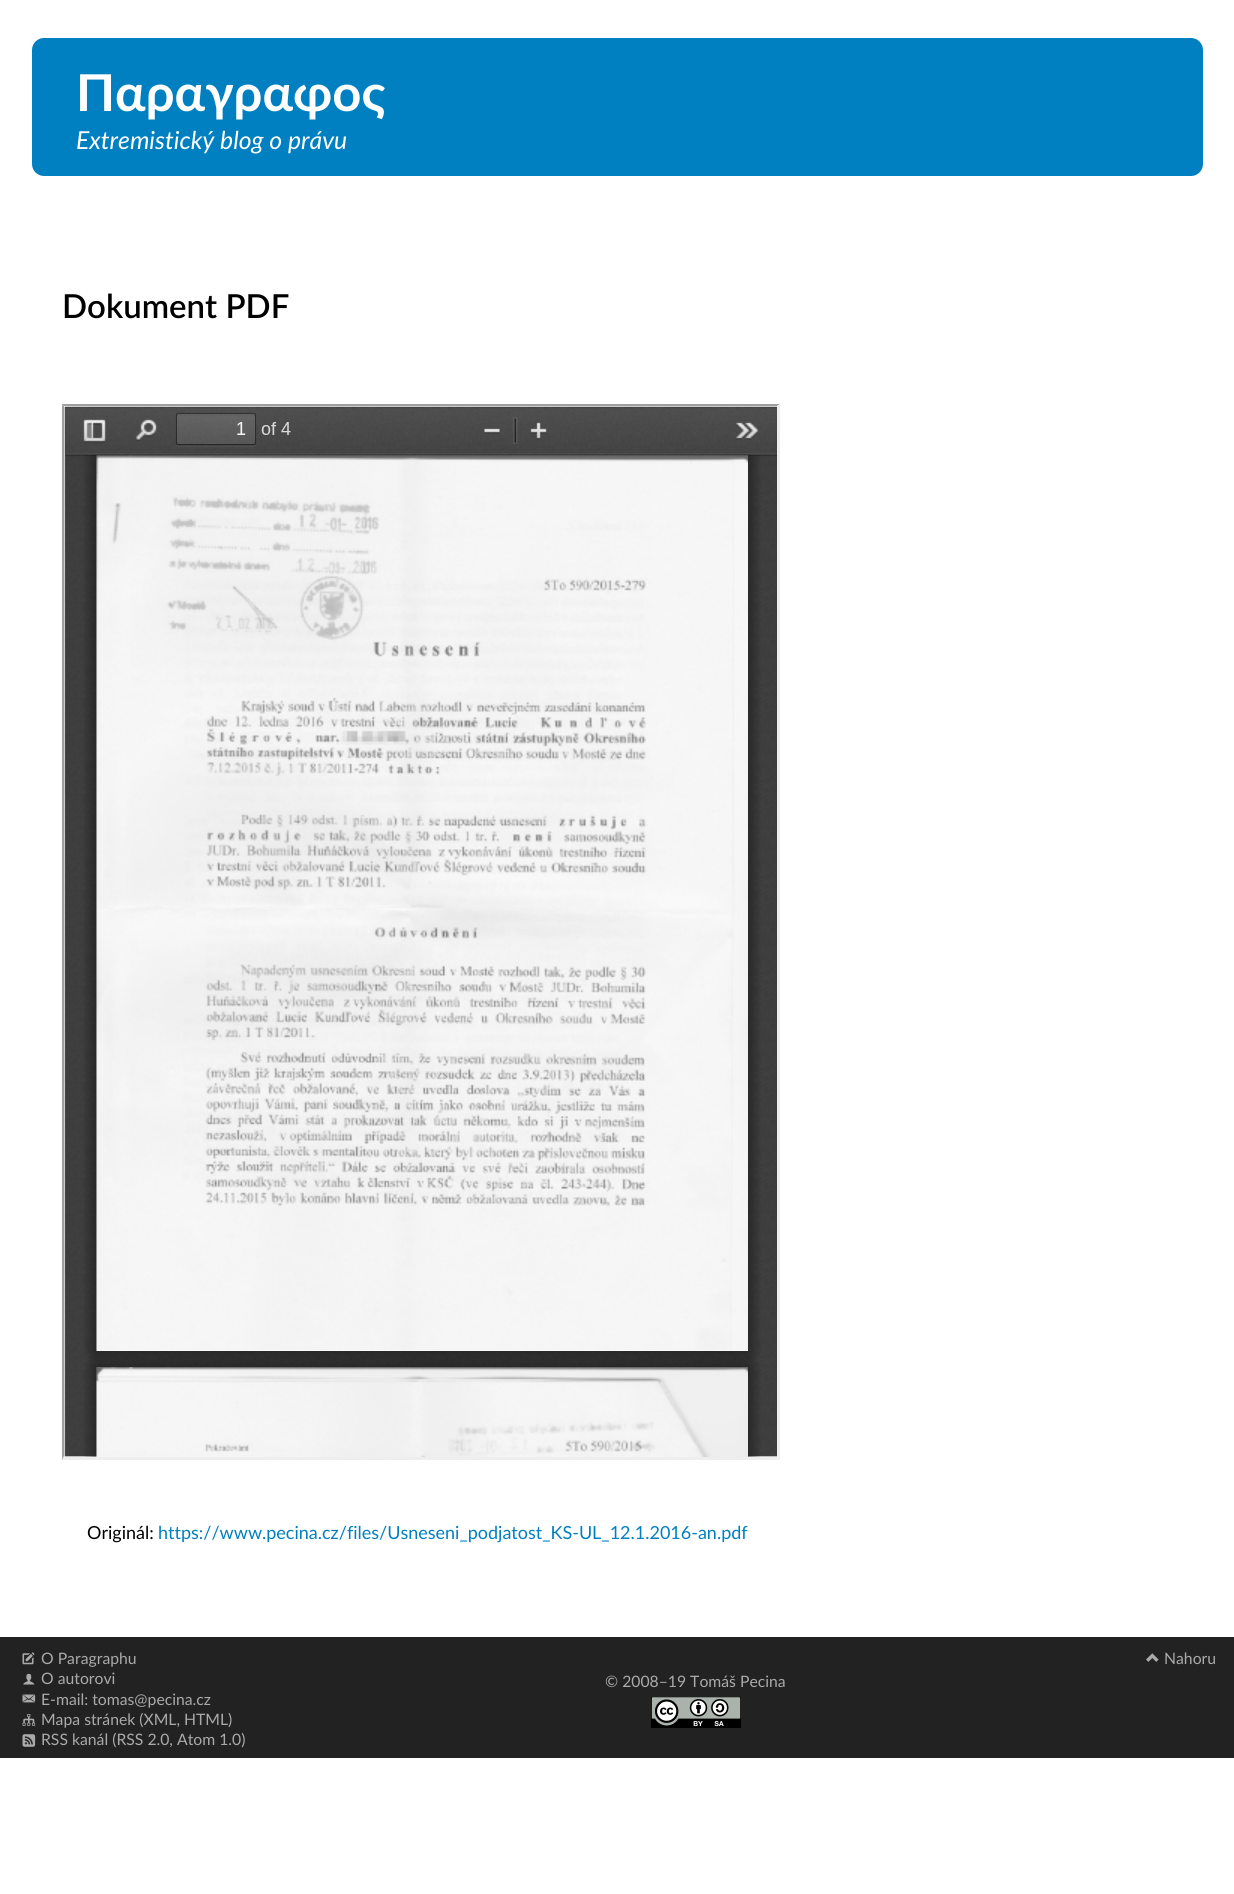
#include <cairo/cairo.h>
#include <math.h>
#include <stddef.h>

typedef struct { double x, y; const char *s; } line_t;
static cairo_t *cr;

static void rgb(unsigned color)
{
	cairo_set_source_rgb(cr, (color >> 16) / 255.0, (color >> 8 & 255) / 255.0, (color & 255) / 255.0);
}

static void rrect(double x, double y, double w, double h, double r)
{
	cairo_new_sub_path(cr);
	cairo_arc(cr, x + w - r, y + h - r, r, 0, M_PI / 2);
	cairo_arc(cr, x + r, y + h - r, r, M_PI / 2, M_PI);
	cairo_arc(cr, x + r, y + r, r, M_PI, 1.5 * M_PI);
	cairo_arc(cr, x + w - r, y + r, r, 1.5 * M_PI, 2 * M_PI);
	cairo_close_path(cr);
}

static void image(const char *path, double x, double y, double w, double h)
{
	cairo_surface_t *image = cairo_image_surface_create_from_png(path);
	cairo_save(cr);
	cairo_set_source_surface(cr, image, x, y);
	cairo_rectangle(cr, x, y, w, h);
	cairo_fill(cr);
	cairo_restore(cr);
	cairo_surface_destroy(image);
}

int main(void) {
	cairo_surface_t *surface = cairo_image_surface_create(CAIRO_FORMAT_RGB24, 1234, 1894);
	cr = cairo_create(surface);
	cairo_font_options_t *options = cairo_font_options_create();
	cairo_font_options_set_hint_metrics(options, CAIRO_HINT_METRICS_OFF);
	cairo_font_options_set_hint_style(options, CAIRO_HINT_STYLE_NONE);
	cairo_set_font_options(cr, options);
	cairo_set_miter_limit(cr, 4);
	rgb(0xffffff);
	cairo_paint(cr);
	rgb(0x0080c0);
	rrect(32, 38, 1171, 138, 12);
	cairo_fill(cr);
	rgb(0x9f9f9f);
	cairo_new_path(cr);
	cairo_move_to(cr, 62, 404);
	cairo_line_to(cr, 780, 404);
	cairo_line_to(cr, 777, 406);
	cairo_line_to(cr, 64, 406);
	cairo_close_path(cr);
	cairo_fill(cr);
	rgb(0xeeeeee);
	cairo_new_path(cr);
	cairo_move_to(cr, 780, 404);
	cairo_line_to(cr, 780, 1460);
	cairo_line_to(cr, 777, 1456);
	cairo_line_to(cr, 777, 406);
	cairo_close_path(cr);
	cairo_fill(cr);
	cairo_new_path(cr);
	cairo_move_to(cr, 780, 1460);
	cairo_line_to(cr, 62, 1460);
	cairo_line_to(cr, 64, 1456);
	cairo_line_to(cr, 777, 1456);
	cairo_close_path(cr);
	cairo_fill(cr);
	rgb(0x9f9f9f);
	cairo_new_path(cr);
	cairo_move_to(cr, 62, 1460);
	cairo_line_to(cr, 62, 404);
	cairo_line_to(cr, 64, 406);
	cairo_line_to(cr, 64, 1456);
	cairo_close_path(cr);
	cairo_fill(cr);
	image("img/1.png", 64, 406, 713, 1051);
	rgb(0x222222);
	cairo_rectangle(cr, 0, 1637, 1234, 121);
	cairo_fill(cr);
	image("img/2.png", 22, 1652, 13, 13);
	image("img/3.png", 23, 1673, 12, 12);
	image("img/4.png", 22, 1694, 14, 9);
	image("img/5.png", 22, 1714, 14, 12);
	image("img/6.png", 22, 1734, 14, 13);
	image("img/7.png", 1146, 1653, 13, 9);
	image("img/8.png", 651, 1697, 90, 31);
	cairo_select_font_face(cr, "Lato", CAIRO_FONT_SLANT_NORMAL, CAIRO_FONT_WEIGHT_BOLD);
	cairo_set_font_size(cr, 50.75);
	rgb(0xffffff);
	cairo_move_to(cr, 76, 111);
	cairo_show_text(cr, "Παραγραφος");
	cairo_select_font_face(cr, "Lato", CAIRO_FONT_SLANT_ITALIC, CAIRO_FONT_WEIGHT_NORMAL);
	cairo_set_font_size(cr, 24.75);
	cairo_move_to(cr, 76, 149);
	cairo_show_text(cr, "Extremistický blog o právu");
	cairo_select_font_face(cr, "Lato SemiBold", CAIRO_FONT_SLANT_NORMAL, CAIRO_FONT_WEIGHT_NORMAL);
	cairo_set_font_size(cr, 33);
	rgb(0x000000);
	cairo_move_to(cr, 62, 318);
	cairo_show_text(cr, "Dokument PDF");
	cairo_select_font_face(cr, "Lato", CAIRO_FONT_SLANT_NORMAL, CAIRO_FONT_WEIGHT_NORMAL);
	cairo_set_font_size(cr, 18);
	cairo_move_to(cr, 87, 1539);
	cairo_show_text(cr, "Originál:");
	rgb(0x0080c0);
	cairo_move_to(cr, 158, 1539);
	cairo_show_text(cr, "https://www.pecina.cz/files/Usneseni_podjatost_KS-UL_12.1.2016-an.pdf");
	cairo_set_font_size(cr, 15.75);
	rgb(0xaaaaaa);
	{
		static const line_t items[] = {
			{41, 1664, "O Paragraphu"},
			{41, 1684, "O autorovi"},
			{41, 1705, "E-mail: tomas@pecina.cz"},
			{41, 1725, "Mapa stránek (XML, HTML)"},
			{41, 1745, "RSS kanál (RSS 2.0, Atom 1.0)"},
			{1164, 1664, "Nahoru"},
			{605, 1687, "© 2008–19 Tomáš Pecina"},
		};
		for (size_t i = 0; i < sizeof items / sizeof *items; i++) {
			cairo_move_to(cr, items[i].x, items[i].y);
			cairo_show_text(cr, items[i].s);
		}
	}
	cairo_surface_write_to_png(surface, "page.png");
	cairo_font_options_destroy(options);
	cairo_destroy(cr);
	cairo_surface_destroy(surface);
	return 0;
}
